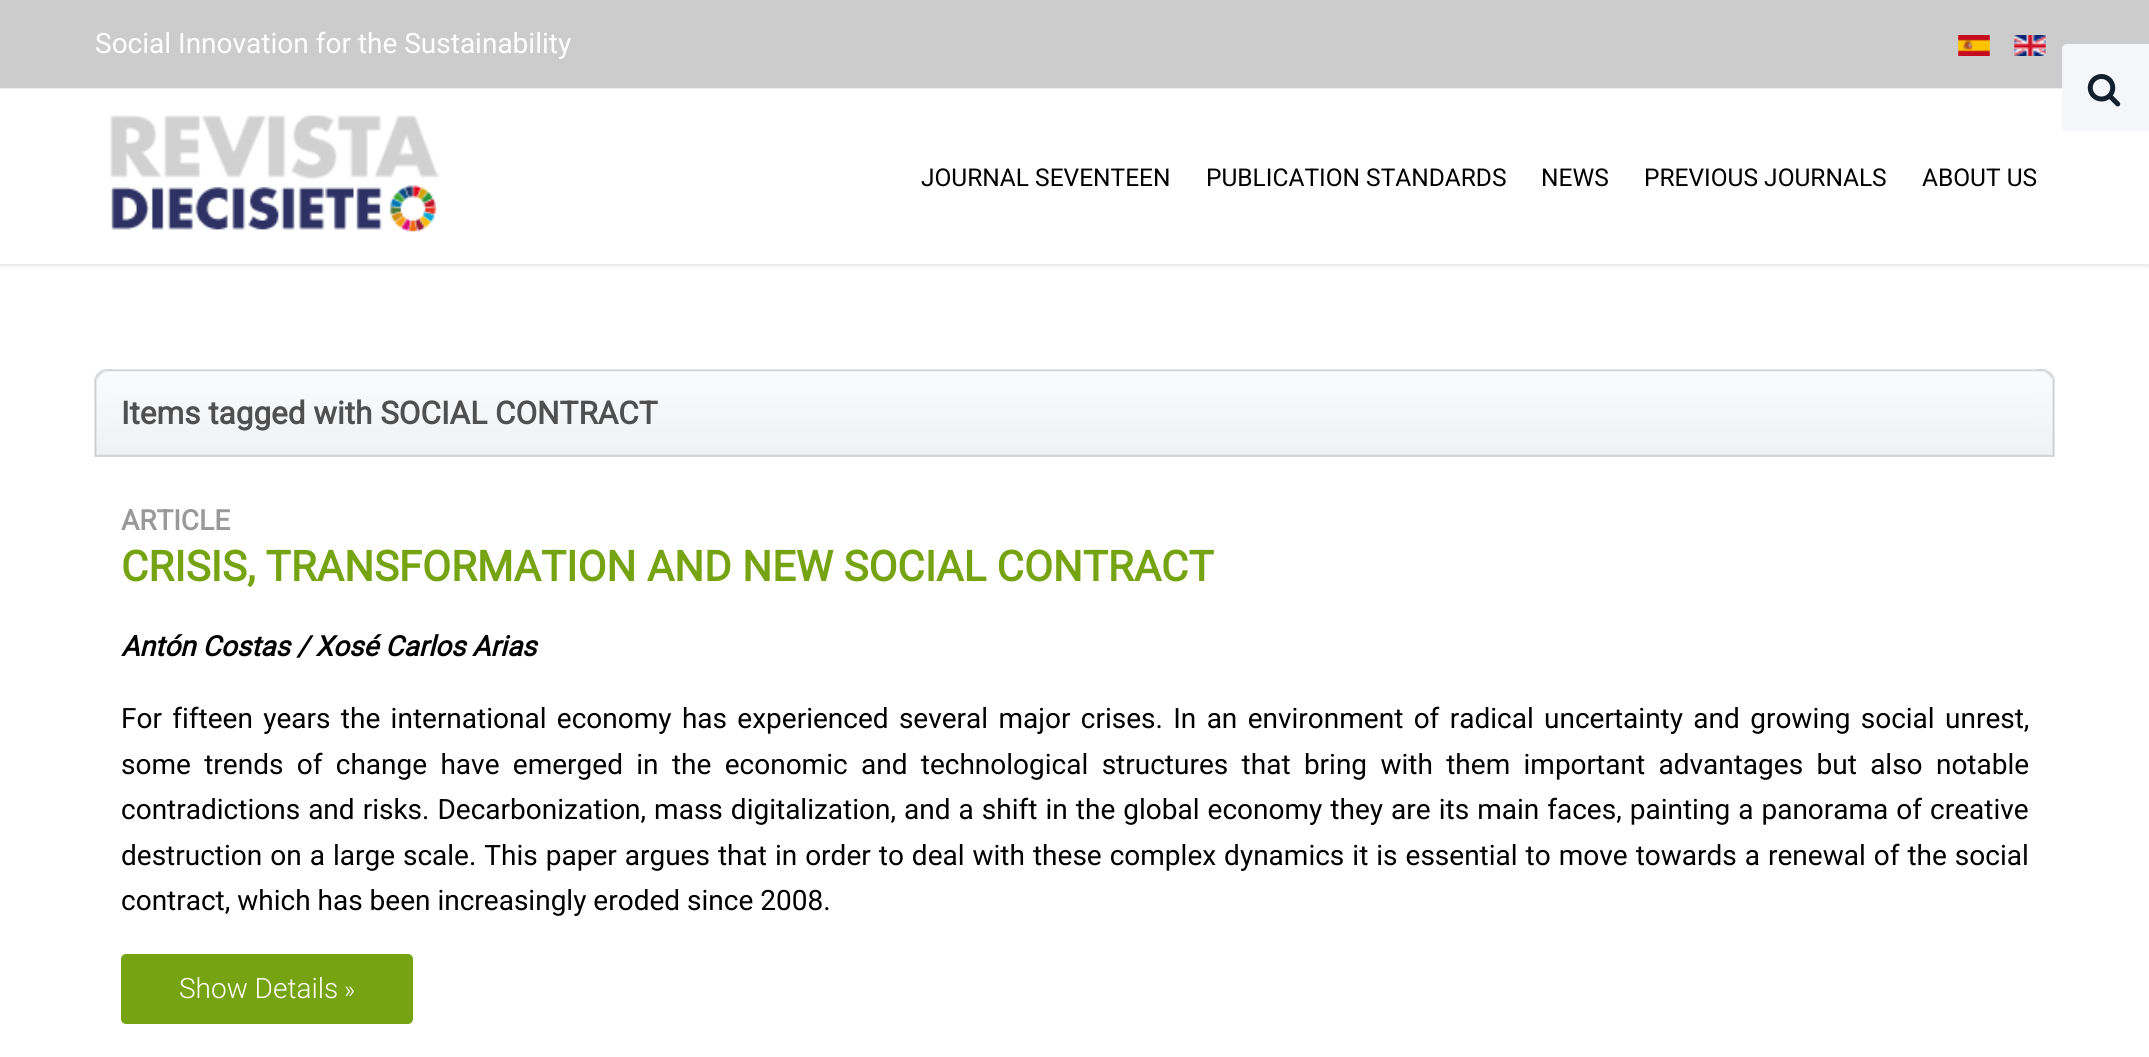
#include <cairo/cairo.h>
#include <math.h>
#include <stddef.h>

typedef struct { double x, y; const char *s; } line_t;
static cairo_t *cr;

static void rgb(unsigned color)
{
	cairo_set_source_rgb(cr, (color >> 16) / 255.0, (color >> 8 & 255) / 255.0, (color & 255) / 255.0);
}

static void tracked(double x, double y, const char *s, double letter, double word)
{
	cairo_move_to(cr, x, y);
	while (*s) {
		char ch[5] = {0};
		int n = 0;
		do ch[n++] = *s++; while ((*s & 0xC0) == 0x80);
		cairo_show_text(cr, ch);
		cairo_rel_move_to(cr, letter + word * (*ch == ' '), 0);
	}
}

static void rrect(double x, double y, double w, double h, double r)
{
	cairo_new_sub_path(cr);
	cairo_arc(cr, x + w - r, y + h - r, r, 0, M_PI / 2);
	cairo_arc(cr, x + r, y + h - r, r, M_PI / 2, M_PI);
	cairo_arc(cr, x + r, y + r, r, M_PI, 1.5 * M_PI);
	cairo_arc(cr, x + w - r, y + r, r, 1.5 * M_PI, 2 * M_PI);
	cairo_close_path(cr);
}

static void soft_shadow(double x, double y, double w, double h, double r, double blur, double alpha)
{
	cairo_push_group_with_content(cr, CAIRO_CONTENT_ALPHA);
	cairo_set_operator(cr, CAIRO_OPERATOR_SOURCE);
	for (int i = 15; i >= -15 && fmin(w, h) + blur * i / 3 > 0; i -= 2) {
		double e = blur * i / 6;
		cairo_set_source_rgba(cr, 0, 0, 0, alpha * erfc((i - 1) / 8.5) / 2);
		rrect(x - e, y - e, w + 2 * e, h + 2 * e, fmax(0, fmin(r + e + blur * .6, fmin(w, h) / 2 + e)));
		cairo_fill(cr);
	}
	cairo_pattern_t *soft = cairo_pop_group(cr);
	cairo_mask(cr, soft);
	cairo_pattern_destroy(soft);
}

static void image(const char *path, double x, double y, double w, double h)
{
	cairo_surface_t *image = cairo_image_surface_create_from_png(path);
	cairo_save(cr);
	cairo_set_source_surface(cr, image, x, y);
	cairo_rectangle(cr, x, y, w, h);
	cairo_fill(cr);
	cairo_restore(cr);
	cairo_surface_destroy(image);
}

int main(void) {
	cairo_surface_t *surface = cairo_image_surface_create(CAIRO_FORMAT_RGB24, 2149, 1057);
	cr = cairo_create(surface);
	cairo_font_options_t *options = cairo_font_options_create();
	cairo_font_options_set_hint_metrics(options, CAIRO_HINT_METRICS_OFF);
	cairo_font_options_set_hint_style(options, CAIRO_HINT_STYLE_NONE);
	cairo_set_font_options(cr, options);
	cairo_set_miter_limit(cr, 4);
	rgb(0xffffff);
	cairo_paint(cr);
	rgb(0xcccccc);
	cairo_rectangle(cr, 0, 0, 2149, 88);
	cairo_fill(cr);
	rgb(0xededf0);
	cairo_rectangle(cr, 0, 88, 2062, 1);
	cairo_fill(cr);
	image("img/1.png", 1958, 35, 32, 21);
	image("img/2.png", 2014, 35, 32, 21);
	rgb(0x000000);
	soft_shadow(0, 91, 2149, 175, 0, 2, 0.1);
	rgb(0xffffff);
	cairo_rectangle(cr, 0, 89, 2149, 175);
	cairo_fill(cr);
	rgb(0xf5f6fa);
	cairo_new_path(cr);
	cairo_move_to(cr, 2067, 44);
	cairo_line_to(cr, 2149, 44);
	cairo_line_to(cr, 2149, 131);
	cairo_line_to(cr, 2067, 131);
	cairo_curve_to(cr, 2064, 131, 2062, 129, 2062, 126);
	cairo_line_to(cr, 2062, 49);
	cairo_curve_to(cr, 2062, 46, 2064, 44, 2067, 44);
	cairo_close_path(cr);
	cairo_fill(cr);
	image("img/3.png", 2087, 74, 34, 33);
	image("img/4.png", 110, 115, 330, 117);
	image("img/5.png", 94, 369, 18, 88);
	image("img/6.png", 2037, 369, 18, 88);
	image("img/7.png", 112, 369, 1925, 88);
	rgb(0x75a311);
	rrect(121, 954, 292, 70, 5);
	cairo_fill(cr);
	cairo_select_font_face(cr, "Roboto", CAIRO_FONT_SLANT_NORMAL, CAIRO_FONT_WEIGHT_NORMAL);
	cairo_set_font_size(cr, 28);
	rgb(0xffffff);
	cairo_move_to(cr, 95, 53);
	cairo_show_text(cr, "Social Innovation for the Sustainability");
	cairo_set_font_size(cr, 24.5);
	rgb(0x000000);
	{
		static const line_t items[] = {
			{921, 186, "JOURNAL SEVENTEEN"},
			{1206, 186, "PUBLICATION STANDARDS"},
			{1541, 186, "NEWS"},
			{1644, 186, "PREVIOUS JOURNALS"},
			{1922, 186, "ABOUT US"},
		};
		for (size_t i = 0; i < sizeof items / sizeof *items; i++) {
			cairo_move_to(cr, items[i].x, items[i].y);
			cairo_show_text(cr, items[i].s);
		}
	}
	cairo_select_font_face(cr, "Roboto", CAIRO_FONT_SLANT_NORMAL, CAIRO_FONT_WEIGHT_BOLD);
	cairo_set_font_size(cr, 31.5);
	rgb(0x505050);
	cairo_move_to(cr, 121, 424);
	cairo_show_text(cr, "Items tagged with SOCIAL CONTRACT");
	cairo_set_font_size(cr, 28);
	rgb(0x999999);
	cairo_move_to(cr, 121, 530);
	cairo_show_text(cr, "ARTICLE");
	cairo_set_font_size(cr, 42);
	rgb(0x75a311);
	cairo_move_to(cr, 121, 581);
	cairo_show_text(cr, "CRISIS, TRANSFORMATION AND NEW SOCIAL CONTRACT");
	cairo_select_font_face(cr, "Roboto", CAIRO_FONT_SLANT_ITALIC, CAIRO_FONT_WEIGHT_BOLD);
	cairo_set_font_size(cr, 28);
	rgb(0x000000);
	cairo_move_to(cr, 121, 656);
	cairo_show_text(cr, "Antón Costas / Xosé Carlos Arias");
	cairo_select_font_face(cr, "Roboto", CAIRO_FONT_SLANT_NORMAL, CAIRO_FONT_WEIGHT_NORMAL);
	tracked(121, 728, "For fifteen years the international economy has experienced several major crises. In an environment of radical uncertainty and growing social unrest,", 0, 3.4);
	tracked(121, 774, "some trends of change have emerged in the economic and technological structures that bring with them important advantages but also notable", 0, 6.4);
	tracked(121, 819, "contradictions and risks. Decarbonization, mass digitalization, and a shift in the global economy they are its main faces, painting a panorama of creative", 0, 1.1);
	tracked(121, 865, "destruction on a large scale. This paper argues that in order to deal with these complex dynamics it is essential to move towards a renewal of the social", 0, 1.05);
	cairo_move_to(cr, 121, 910);
	cairo_show_text(cr, "contract, which has been increasingly eroded since 2008.");
	cairo_select_font_face(cr, "Roboto Light", CAIRO_FONT_SLANT_NORMAL, CAIRO_FONT_WEIGHT_NORMAL);
	rgb(0xffffff);
	cairo_move_to(cr, 179, 998);
	cairo_show_text(cr, "Show Details");
	cairo_set_font_size(cr, 24.5);
	cairo_move_to(cr, 344, 998);
	cairo_show_text(cr, "»");
	cairo_surface_write_to_png(surface, "page.png");
	cairo_font_options_destroy(options);
	cairo_destroy(cr);
	cairo_surface_destroy(surface);
	return 0;
}
